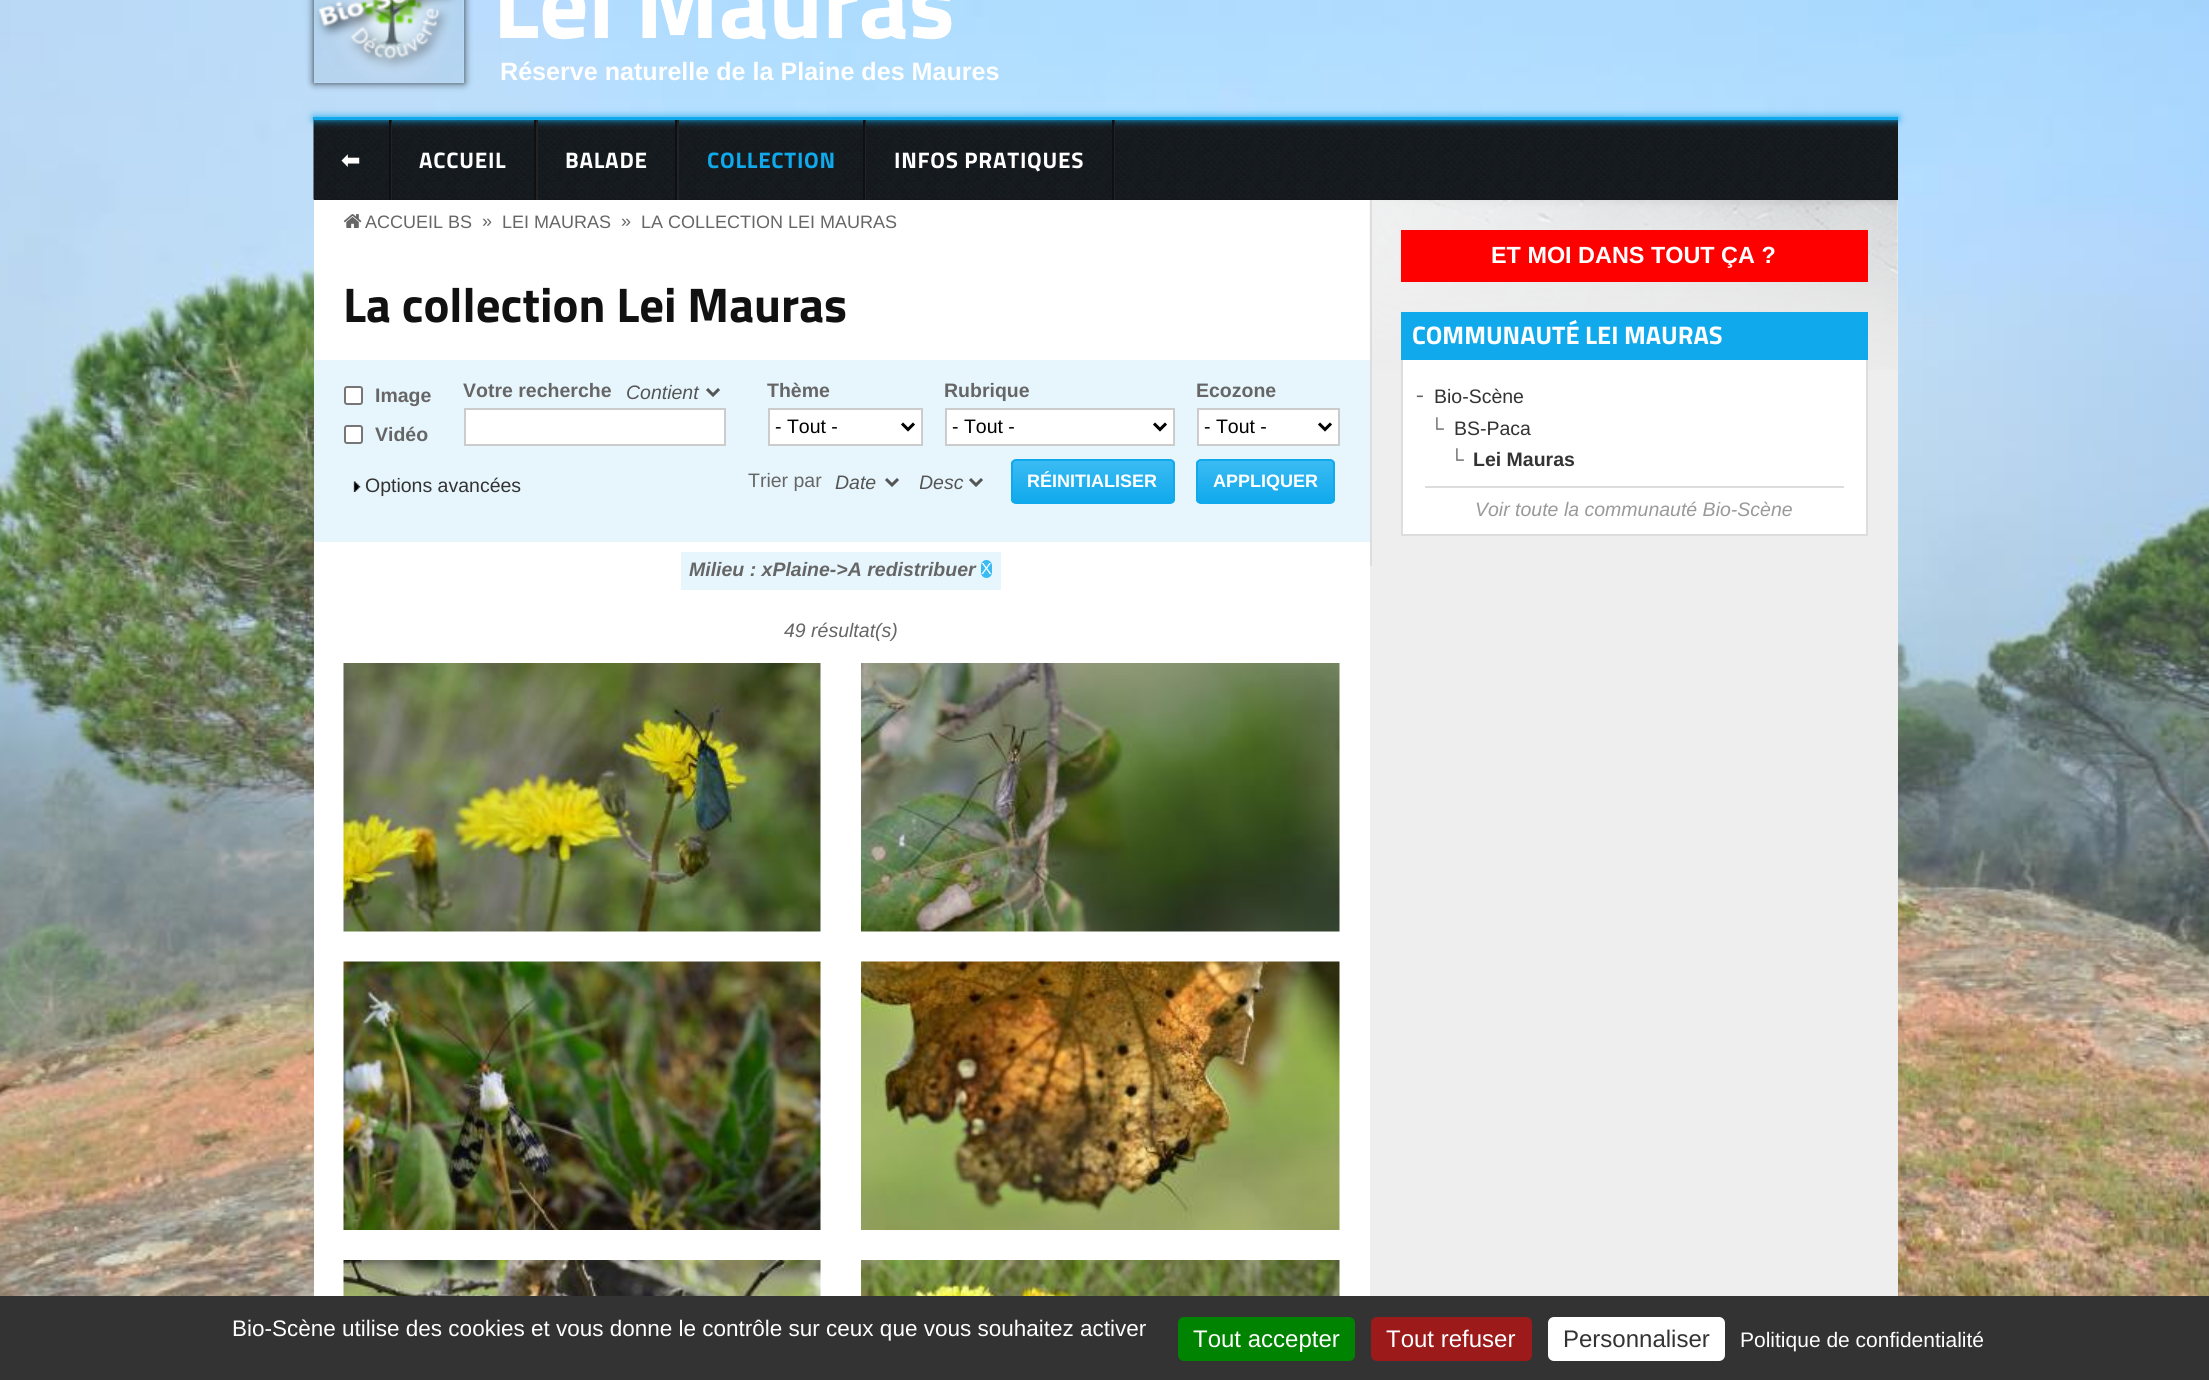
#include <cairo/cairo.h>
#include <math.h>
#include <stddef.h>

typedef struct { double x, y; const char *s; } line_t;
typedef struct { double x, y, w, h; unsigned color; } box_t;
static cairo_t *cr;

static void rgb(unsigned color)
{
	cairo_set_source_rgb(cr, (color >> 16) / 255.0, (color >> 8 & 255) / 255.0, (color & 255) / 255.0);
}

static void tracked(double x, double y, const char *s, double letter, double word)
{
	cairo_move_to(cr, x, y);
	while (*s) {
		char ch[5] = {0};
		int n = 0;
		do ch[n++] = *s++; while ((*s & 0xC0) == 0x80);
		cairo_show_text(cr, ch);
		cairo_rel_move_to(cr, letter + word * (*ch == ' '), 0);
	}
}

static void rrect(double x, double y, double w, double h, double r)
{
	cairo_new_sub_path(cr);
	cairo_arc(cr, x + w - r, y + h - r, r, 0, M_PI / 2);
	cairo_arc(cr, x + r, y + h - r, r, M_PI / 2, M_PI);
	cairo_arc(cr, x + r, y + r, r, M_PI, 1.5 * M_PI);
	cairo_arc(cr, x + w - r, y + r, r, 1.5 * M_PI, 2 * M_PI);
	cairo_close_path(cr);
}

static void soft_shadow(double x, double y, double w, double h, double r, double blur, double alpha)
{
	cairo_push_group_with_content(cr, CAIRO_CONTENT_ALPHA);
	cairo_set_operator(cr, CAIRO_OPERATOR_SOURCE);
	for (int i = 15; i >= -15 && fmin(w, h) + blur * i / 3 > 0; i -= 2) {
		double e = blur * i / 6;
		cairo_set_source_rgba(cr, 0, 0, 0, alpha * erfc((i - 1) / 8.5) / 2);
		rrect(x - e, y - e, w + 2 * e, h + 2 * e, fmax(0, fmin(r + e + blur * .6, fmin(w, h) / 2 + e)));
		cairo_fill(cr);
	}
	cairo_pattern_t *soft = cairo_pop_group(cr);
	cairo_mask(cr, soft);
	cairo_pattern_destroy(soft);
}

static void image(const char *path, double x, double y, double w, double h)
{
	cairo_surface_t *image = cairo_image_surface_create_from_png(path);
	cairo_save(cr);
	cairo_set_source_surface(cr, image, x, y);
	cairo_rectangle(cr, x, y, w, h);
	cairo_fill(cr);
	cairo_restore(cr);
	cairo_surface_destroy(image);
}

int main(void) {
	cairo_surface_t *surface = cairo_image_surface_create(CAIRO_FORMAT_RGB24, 2209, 1380);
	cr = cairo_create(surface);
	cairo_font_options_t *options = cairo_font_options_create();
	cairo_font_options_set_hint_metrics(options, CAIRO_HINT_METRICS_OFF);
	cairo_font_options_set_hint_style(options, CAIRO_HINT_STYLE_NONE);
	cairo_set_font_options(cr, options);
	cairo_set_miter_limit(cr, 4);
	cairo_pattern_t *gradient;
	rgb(0xffffff);
	cairo_paint(cr);
	image("img/1.png", 0, 0, 2209, 1296);
	cairo_save(cr);
	cairo_set_fill_rule(cr, CAIRO_FILL_RULE_EVEN_ODD);
	cairo_new_path(cr);
	cairo_move_to(cr, 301, 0);
	cairo_line_to(cr, 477, 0);
	cairo_line_to(cr, 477, 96);
	cairo_line_to(cr, 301, 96);
	cairo_close_path(cr);
	cairo_move_to(cr, 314, -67);
	cairo_line_to(cr, 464, -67);
	cairo_line_to(cr, 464, 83);
	cairo_line_to(cr, 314, 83);
	cairo_close_path(cr);
	cairo_clip(cr);
	rgb(0x000000);
	soft_shadow(314, -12, 150, 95, 0, 4, 0.75);
	cairo_restore(cr);
	image("img/2.png", 313, 0, 151, 83);
	rgb(0x161616);
	cairo_rectangle(cr, 314, 120, 1584, 80);
	cairo_fill(cr);
	image("img/3.png", 313, 117, 1585, 83);
	rgb(0x0fa9ec);
	soft_shadow(314, 117, 1584, 3, 0, 4, 1);
	{
		static const box_t items[] = {
			{314, 117, 1584, 3, 0x0fa9ec},
			{391, 120, 1, 80, 0x232323},
			{389, 120, 2, 80, 0x0e1114},
			{536, 120, 2, 80, 0x232323},
			{534, 120, 2, 80, 0x0e1114},
			{677, 120, 2, 80, 0x232323},
			{675, 120, 2, 80, 0x0e1114},
			{865, 120, 1, 80, 0x232323},
			{863, 120, 2, 80, 0x0e1114},
			{1114, 120, 1, 80, 0x232323},
			{1112, 120, 2, 80, 0x0e1114},
			{314, 200, 1056, 1096, 0xffffff},
		};
		for (size_t i = 0; i < sizeof items / sizeof *items; i++) {
			rgb(items[i].color);
			cairo_rectangle(cr, items[i].x, items[i].y, items[i].w, items[i].h);
			cairo_fill(cr);
		}
	}
	image("img/4.png", 343, 214, 19, 14);
	rgb(0xe7f6fd);
	cairo_rectangle(cr, 314, 360, 1056, 182);
	cairo_fill(cr);
	rgb(0xffffff);
	rrect(345, 387, 17, 17, 2);
	cairo_fill_preserve(cr);
	rgb(0x767676);
	cairo_stroke(cr);
	rgb(0xffffff);
	rrect(345, 426, 17, 17, 2);
	cairo_fill_preserve(cr);
	rgb(0x767676);
	cairo_stroke(cr);
	cairo_new_path(cr);
	cairo_move_to(cr, 707, 389);
	cairo_line_to(cr, 713, 395);
	cairo_line_to(cr, 719, 389);
	rgb(0x555555);
	cairo_set_line_width(cr, 3);
	cairo_stroke(cr);
	rgb(0xffffff);
	cairo_rectangle(cr, 465, 409, 260, 36);
	cairo_fill_preserve(cr);
	rgb(0xcccccc);
	cairo_set_line_width(cr, 2);
	cairo_stroke(cr);
	rgb(0xffffff);
	cairo_rectangle(cr, 769, 409, 153, 36);
	cairo_fill_preserve(cr);
	rgb(0xcccccc);
	cairo_stroke(cr);
	cairo_new_path(cr);
	cairo_move_to(cr, 902, 423.5);
	cairo_line_to(cr, 908, 429.5);
	cairo_line_to(cr, 914, 423.5);
	rgb(0x000000);
	cairo_set_line_width(cr, 3);
	cairo_stroke(cr);
	rgb(0xffffff);
	cairo_rectangle(cr, 946, 409, 228, 36);
	cairo_fill_preserve(cr);
	rgb(0xcccccc);
	cairo_set_line_width(cr, 2);
	cairo_stroke(cr);
	cairo_new_path(cr);
	cairo_move_to(cr, 1154, 423.5);
	cairo_line_to(cr, 1160, 429.5);
	cairo_line_to(cr, 1166, 423.5);
	rgb(0x000000);
	cairo_set_line_width(cr, 3);
	cairo_stroke(cr);
	rgb(0xffffff);
	cairo_rectangle(cr, 1198, 409, 141, 36);
	cairo_fill_preserve(cr);
	rgb(0xcccccc);
	cairo_set_line_width(cr, 2);
	cairo_stroke(cr);
	cairo_new_path(cr);
	cairo_move_to(cr, 1319, 423.5);
	cairo_line_to(cr, 1325, 429.5);
	cairo_line_to(cr, 1331, 423.5);
	rgb(0x000000);
	cairo_set_line_width(cr, 3);
	cairo_stroke(cr);
	image("img/5.png", 353, 481, 8, 11);
	cairo_new_path(cr);
	cairo_move_to(cr, 886, 479);
	cairo_line_to(cr, 892, 485);
	cairo_line_to(cr, 898, 479);
	rgb(0x555555);
	cairo_stroke(cr);
	cairo_new_path(cr);
	cairo_move_to(cr, 970, 479);
	cairo_line_to(cr, 976, 485);
	cairo_line_to(cr, 982, 479);
	cairo_stroke(cr);
	cairo_save(cr);
	rrect(1011, 459, 164, 45, 5);
	cairo_clip(cr);
	gradient = cairo_pattern_create_linear(1093, 461, 1093, 503);
	cairo_pattern_add_color_stop_rgba(gradient, 0, 0.231, 0.733, 0.953, 1);
	cairo_pattern_add_color_stop_rgba(gradient, 1, 0.059, 0.663, 0.925, 1);
	cairo_set_source(cr, gradient);
	cairo_pattern_destroy(gradient);
	cairo_rectangle(cr, 1011, 461, 164, 42);
	cairo_fill(cr);
	cairo_restore(cr);
	rrect(1012, 460, 162, 43, 4);
	rgb(0x0fa9ec);
	cairo_set_line_width(cr, 2);
	cairo_stroke(cr);
	cairo_save(cr);
	rrect(1196, 459, 139, 45, 5);
	cairo_clip(cr);
	gradient = cairo_pattern_create_linear(1265, 461, 1265, 503);
	cairo_pattern_add_color_stop_rgba(gradient, 0, 0.231, 0.733, 0.953, 1);
	cairo_pattern_add_color_stop_rgba(gradient, 1, 0.059, 0.663, 0.925, 1);
	cairo_set_source(cr, gradient);
	cairo_pattern_destroy(gradient);
	cairo_rectangle(cr, 1196, 461, 139, 42);
	cairo_fill(cr);
	cairo_restore(cr);
	rrect(1197, 460, 137, 43, 4);
	cairo_stroke(cr);
	rgb(0xe7f6fd);
	cairo_rectangle(cr, 681, 552, 320, 38);
	cairo_fill(cr);
	rgb(0x3bbbf3);
	rrect(981, 560, 11, 18, 5.5);
	cairo_fill(cr);
	image("img/6.png", 343, 663, 478, 269);
	image("img/7.png", 861, 663, 479, 269);
	image("img/8.png", 343, 961, 478, 269);
	image("img/9.png", 861, 961, 479, 269);
	image("img/10.png", 343, 1260, 478, 36);
	image("img/11.png", 861, 1260, 479, 36);
	rgb(0xeeeeee);
	cairo_rectangle(cr, 1370, 200, 528, 1096);
	cairo_fill(cr);
	image("img/12.png", 1369, 200, 529, 170);
	{
		static const box_t items[] = {
			{1370, 200, 2, 366, 0xdddddd},
			{1401, 230, 467, 52, 0xff0000},
			{1401, 312, 467, 48, 0x0fa9ec},
			{1403, 360, 463, 174, 0xffffff},
			{1866, 360, 2, 176, 0xdddddd},
			{1401, 534, 467, 2, 0xdddddd},
			{1401, 360, 2, 176, 0xdddddd},
			{1425, 486, 419, 2, 0xdddddd},
			{0, 1296, 2209, 84, 0x333333},
		};
		for (size_t i = 0; i < sizeof items / sizeof *items; i++) {
			rgb(items[i].color);
			cairo_rectangle(cr, items[i].x, items[i].y, items[i].w, items[i].h);
			cairo_fill(cr);
		}
	}
	rgb(0x008300);
	rrect(1178, 1317, 177, 44, 6);
	cairo_fill(cr);
	rgb(0x9c1a1a);
	rrect(1371, 1317, 161, 44, 6);
	cairo_fill(cr);
	rgb(0xffffff);
	rrect(1548, 1317, 177, 44, 6);
	cairo_fill(cr);
	cairo_select_font_face(cr, "Titillium Web", CAIRO_FONT_SLANT_NORMAL, CAIRO_FONT_WEIGHT_BOLD);
	cairo_set_font_size(cr, 97.5);
	cairo_move_to(cr, 493, 38);
	cairo_show_text(cr, "Lei Mauras");
	cairo_select_font_face(cr, "Liberation Sans", CAIRO_FONT_SLANT_NORMAL, CAIRO_FONT_WEIGHT_BOLD);
	cairo_set_font_size(cr, 25.1);
	cairo_move_to(cr, 500, 80);
	cairo_show_text(cr, "Réserve naturelle de la Plaine des Maures");
	cairo_select_font_face(cr, "DejaVu Sans", CAIRO_FONT_SLANT_NORMAL, CAIRO_FONT_WEIGHT_BOLD);
	cairo_set_font_size(cr, 22.5);
	tracked(341, 168, "⬅", 0.75, 0);
	cairo_select_font_face(cr, "Titillium Web", CAIRO_FONT_SLANT_NORMAL, CAIRO_FONT_WEIGHT_BOLD);
	tracked(419, 168, "ACCUEIL", 0.75, 0);
	tracked(565, 168, "BALADE", 0.75, 0);
	rgb(0x0fa9ec);
	tracked(707, 168, "COLLECTION", 0.75, 0);
	rgb(0xffffff);
	tracked(894, 168, "INFOS PRATIQUES", 0.75, 0);
	cairo_select_font_face(cr, "Liberation Sans", CAIRO_FONT_SLANT_NORMAL, CAIRO_FONT_WEIGHT_NORMAL);
	cairo_set_font_size(cr, 18);
	rgb(0x666666);
	{
		static const line_t items[] = {
			{365, 228, "ACCUEIL BS"},
			{482, 227, "»"},
			{502, 228, "LEI MAURAS"},
			{621, 227, "»"},
			{641, 228, "LA COLLECTION LEI MAURAS"},
		};
		for (size_t i = 0; i < sizeof items / sizeof *items; i++) {
			cairo_move_to(cr, items[i].x, items[i].y);
			cairo_show_text(cr, items[i].s);
		}
	}
	cairo_select_font_face(cr, "Titillium Web", CAIRO_FONT_SLANT_NORMAL, CAIRO_FONT_WEIGHT_BOLD);
	cairo_set_font_size(cr, 48.75);
	rgb(0x111111);
	cairo_move_to(cr, 343, 322);
	cairo_show_text(cr, "La collection Lei Mauras");
	cairo_select_font_face(cr, "Liberation Sans", CAIRO_FONT_SLANT_NORMAL, CAIRO_FONT_WEIGHT_BOLD);
	cairo_set_font_size(cr, 19.5);
	rgb(0x666666);
	{
		static const line_t items[] = {
			{375, 402, "Image"},
			{375, 441, "Vidéo"},
			{463, 397, "Votre recherche"},
		};
		for (size_t i = 0; i < sizeof items / sizeof *items; i++) {
			cairo_move_to(cr, items[i].x, items[i].y);
			cairo_show_text(cr, items[i].s);
		}
	}
	cairo_select_font_face(cr, "Liberation Sans", CAIRO_FONT_SLANT_ITALIC, CAIRO_FONT_WEIGHT_NORMAL);
	rgb(0x555555);
	cairo_move_to(cr, 626, 399);
	cairo_show_text(cr, "Contient");
	cairo_select_font_face(cr, "Liberation Sans", CAIRO_FONT_SLANT_NORMAL, CAIRO_FONT_WEIGHT_BOLD);
	rgb(0x666666);
	cairo_move_to(cr, 767, 397);
	cairo_show_text(cr, "Thème");
	cairo_select_font_face(cr, "Liberation Sans", CAIRO_FONT_SLANT_NORMAL, CAIRO_FONT_WEIGHT_NORMAL);
	rgb(0x000000);
	cairo_move_to(cr, 775, 433);
	cairo_show_text(cr, "- Tout -");
	cairo_select_font_face(cr, "Liberation Sans", CAIRO_FONT_SLANT_NORMAL, CAIRO_FONT_WEIGHT_BOLD);
	rgb(0x666666);
	cairo_move_to(cr, 944, 397);
	cairo_show_text(cr, "Rubrique");
	cairo_select_font_face(cr, "Liberation Sans", CAIRO_FONT_SLANT_NORMAL, CAIRO_FONT_WEIGHT_NORMAL);
	rgb(0x000000);
	cairo_move_to(cr, 952, 433);
	cairo_show_text(cr, "- Tout -");
	cairo_select_font_face(cr, "Liberation Sans", CAIRO_FONT_SLANT_NORMAL, CAIRO_FONT_WEIGHT_BOLD);
	rgb(0x666666);
	cairo_move_to(cr, 1196, 397);
	cairo_show_text(cr, "Ecozone");
	cairo_select_font_face(cr, "Liberation Sans", CAIRO_FONT_SLANT_NORMAL, CAIRO_FONT_WEIGHT_NORMAL);
	rgb(0x000000);
	cairo_move_to(cr, 1204, 433);
	cairo_show_text(cr, "- Tout -");
	rgb(0x333333);
	cairo_move_to(cr, 365, 492);
	cairo_show_text(cr, "Options avancées");
	rgb(0x666666);
	cairo_move_to(cr, 748, 487);
	cairo_show_text(cr, "Trier par");
	cairo_select_font_face(cr, "Liberation Sans", CAIRO_FONT_SLANT_ITALIC, CAIRO_FONT_WEIGHT_NORMAL);
	rgb(0x555555);
	cairo_move_to(cr, 835, 489);
	cairo_show_text(cr, "Date");
	cairo_save(cr);
	cairo_rectangle(cr, 920, 470, 45, 25);
	cairo_clip(cr);
	cairo_move_to(cr, 919, 489);
	cairo_show_text(cr, "Desc");
	cairo_restore(cr);
	cairo_select_font_face(cr, "Liberation Sans", CAIRO_FONT_SLANT_NORMAL, CAIRO_FONT_WEIGHT_BOLD);
	cairo_set_font_size(cr, 18);
	rgb(0xffffff);
	cairo_move_to(cr, 1027, 487);
	cairo_show_text(cr, "RÉINITIALISER");
	cairo_move_to(cr, 1213, 487);
	cairo_show_text(cr, "APPLIQUER");
	cairo_select_font_face(cr, "Liberation Sans", CAIRO_FONT_SLANT_ITALIC, CAIRO_FONT_WEIGHT_BOLD);
	cairo_set_font_size(cr, 19.5);
	rgb(0x666666);
	cairo_move_to(cr, 689, 576);
	cairo_show_text(cr, "Milieu : xPlaine->A redistribuer");
	cairo_select_font_face(cr, "Liberation Sans", CAIRO_FONT_SLANT_NORMAL, CAIRO_FONT_WEIGHT_NORMAL);
	cairo_set_font_size(cr, 16);
	rgb(0xffffff);
	cairo_move_to(cr, 981, 574);
	cairo_show_text(cr, "X");
	cairo_select_font_face(cr, "Liberation Sans", CAIRO_FONT_SLANT_ITALIC, CAIRO_FONT_WEIGHT_NORMAL);
	cairo_set_font_size(cr, 19.5);
	rgb(0x666666);
	cairo_move_to(cr, 784, 637);
	cairo_show_text(cr, "49 résultat(s)");
	cairo_select_font_face(cr, "Liberation Sans", CAIRO_FONT_SLANT_NORMAL, CAIRO_FONT_WEIGHT_BOLD);
	cairo_set_font_size(cr, 23.4);
	rgb(0xffffff);
	cairo_move_to(cr, 1491, 263);
	cairo_show_text(cr, "ET MOI DANS TOUT ÇA ?");
	cairo_select_font_face(cr, "Titillium Web", CAIRO_FONT_SLANT_NORMAL, CAIRO_FONT_WEIGHT_BOLD);
	cairo_set_font_size(cr, 25.4);
	cairo_move_to(cr, 1412, 344);
	cairo_show_text(cr, "COMMUNAUTÉ LEI MAURAS");
	cairo_select_font_face(cr, "DejaVu Sans", CAIRO_FONT_SLANT_NORMAL, CAIRO_FONT_WEIGHT_NORMAL);
	cairo_set_font_size(cr, 19.5);
	rgb(0x666666);
	cairo_move_to(cr, 1411, 403);
	cairo_show_text(cr, "╶");
	cairo_select_font_face(cr, "Liberation Sans", CAIRO_FONT_SLANT_NORMAL, CAIRO_FONT_WEIGHT_NORMAL);
	rgb(0x333333);
	cairo_move_to(cr, 1434, 403);
	cairo_show_text(cr, "Bio-Scène");
	rgb(0x666666);
	cairo_move_to(cr, 1430, 435);
	cairo_show_text(cr, "└");
	rgb(0x333333);
	cairo_move_to(cr, 1454, 435);
	cairo_show_text(cr, "BS-Paca");
	rgb(0x666666);
	cairo_move_to(cr, 1450, 466);
	cairo_show_text(cr, "└");
	cairo_select_font_face(cr, "Liberation Sans", CAIRO_FONT_SLANT_NORMAL, CAIRO_FONT_WEIGHT_BOLD);
	rgb(0x333333);
	cairo_move_to(cr, 1473, 466);
	cairo_show_text(cr, "Lei Mauras");
	cairo_select_font_face(cr, "Liberation Sans", CAIRO_FONT_SLANT_ITALIC, CAIRO_FONT_WEIGHT_NORMAL);
	rgb(0x999999);
	cairo_move_to(cr, 1475, 516);
	cairo_show_text(cr, "Voir toute la communauté Bio-Scène");
	cairo_select_font_face(cr, "Liberation Sans", CAIRO_FONT_SLANT_NORMAL, CAIRO_FONT_WEIGHT_NORMAL);
	cairo_set_font_size(cr, 22.5);
	rgb(0xffffff);
	cairo_move_to(cr, 232, 1336);
	cairo_show_text(cr, "Bio-Scène utilise des cookies et vous donne le contrôle sur ceux que vous souhaitez activer");
	cairo_set_font_size(cr, 24);
	cairo_move_to(cr, 1193, 1347);
	cairo_show_text(cr, "Tout accepter");
	cairo_move_to(cr, 1386, 1347);
	cairo_show_text(cr, "Tout refuser");
	rgb(0x333333);
	cairo_move_to(cr, 1563, 1347);
	cairo_show_text(cr, "Personnaliser");
	cairo_set_font_size(cr, 21);
	rgb(0xffffff);
	cairo_move_to(cr, 1740, 1347);
	cairo_show_text(cr, "Politique de confidentialité");
	cairo_surface_write_to_png(surface, "page.png");
	cairo_font_options_destroy(options);
	cairo_destroy(cr);
	cairo_surface_destroy(surface);
	return 0;
}
